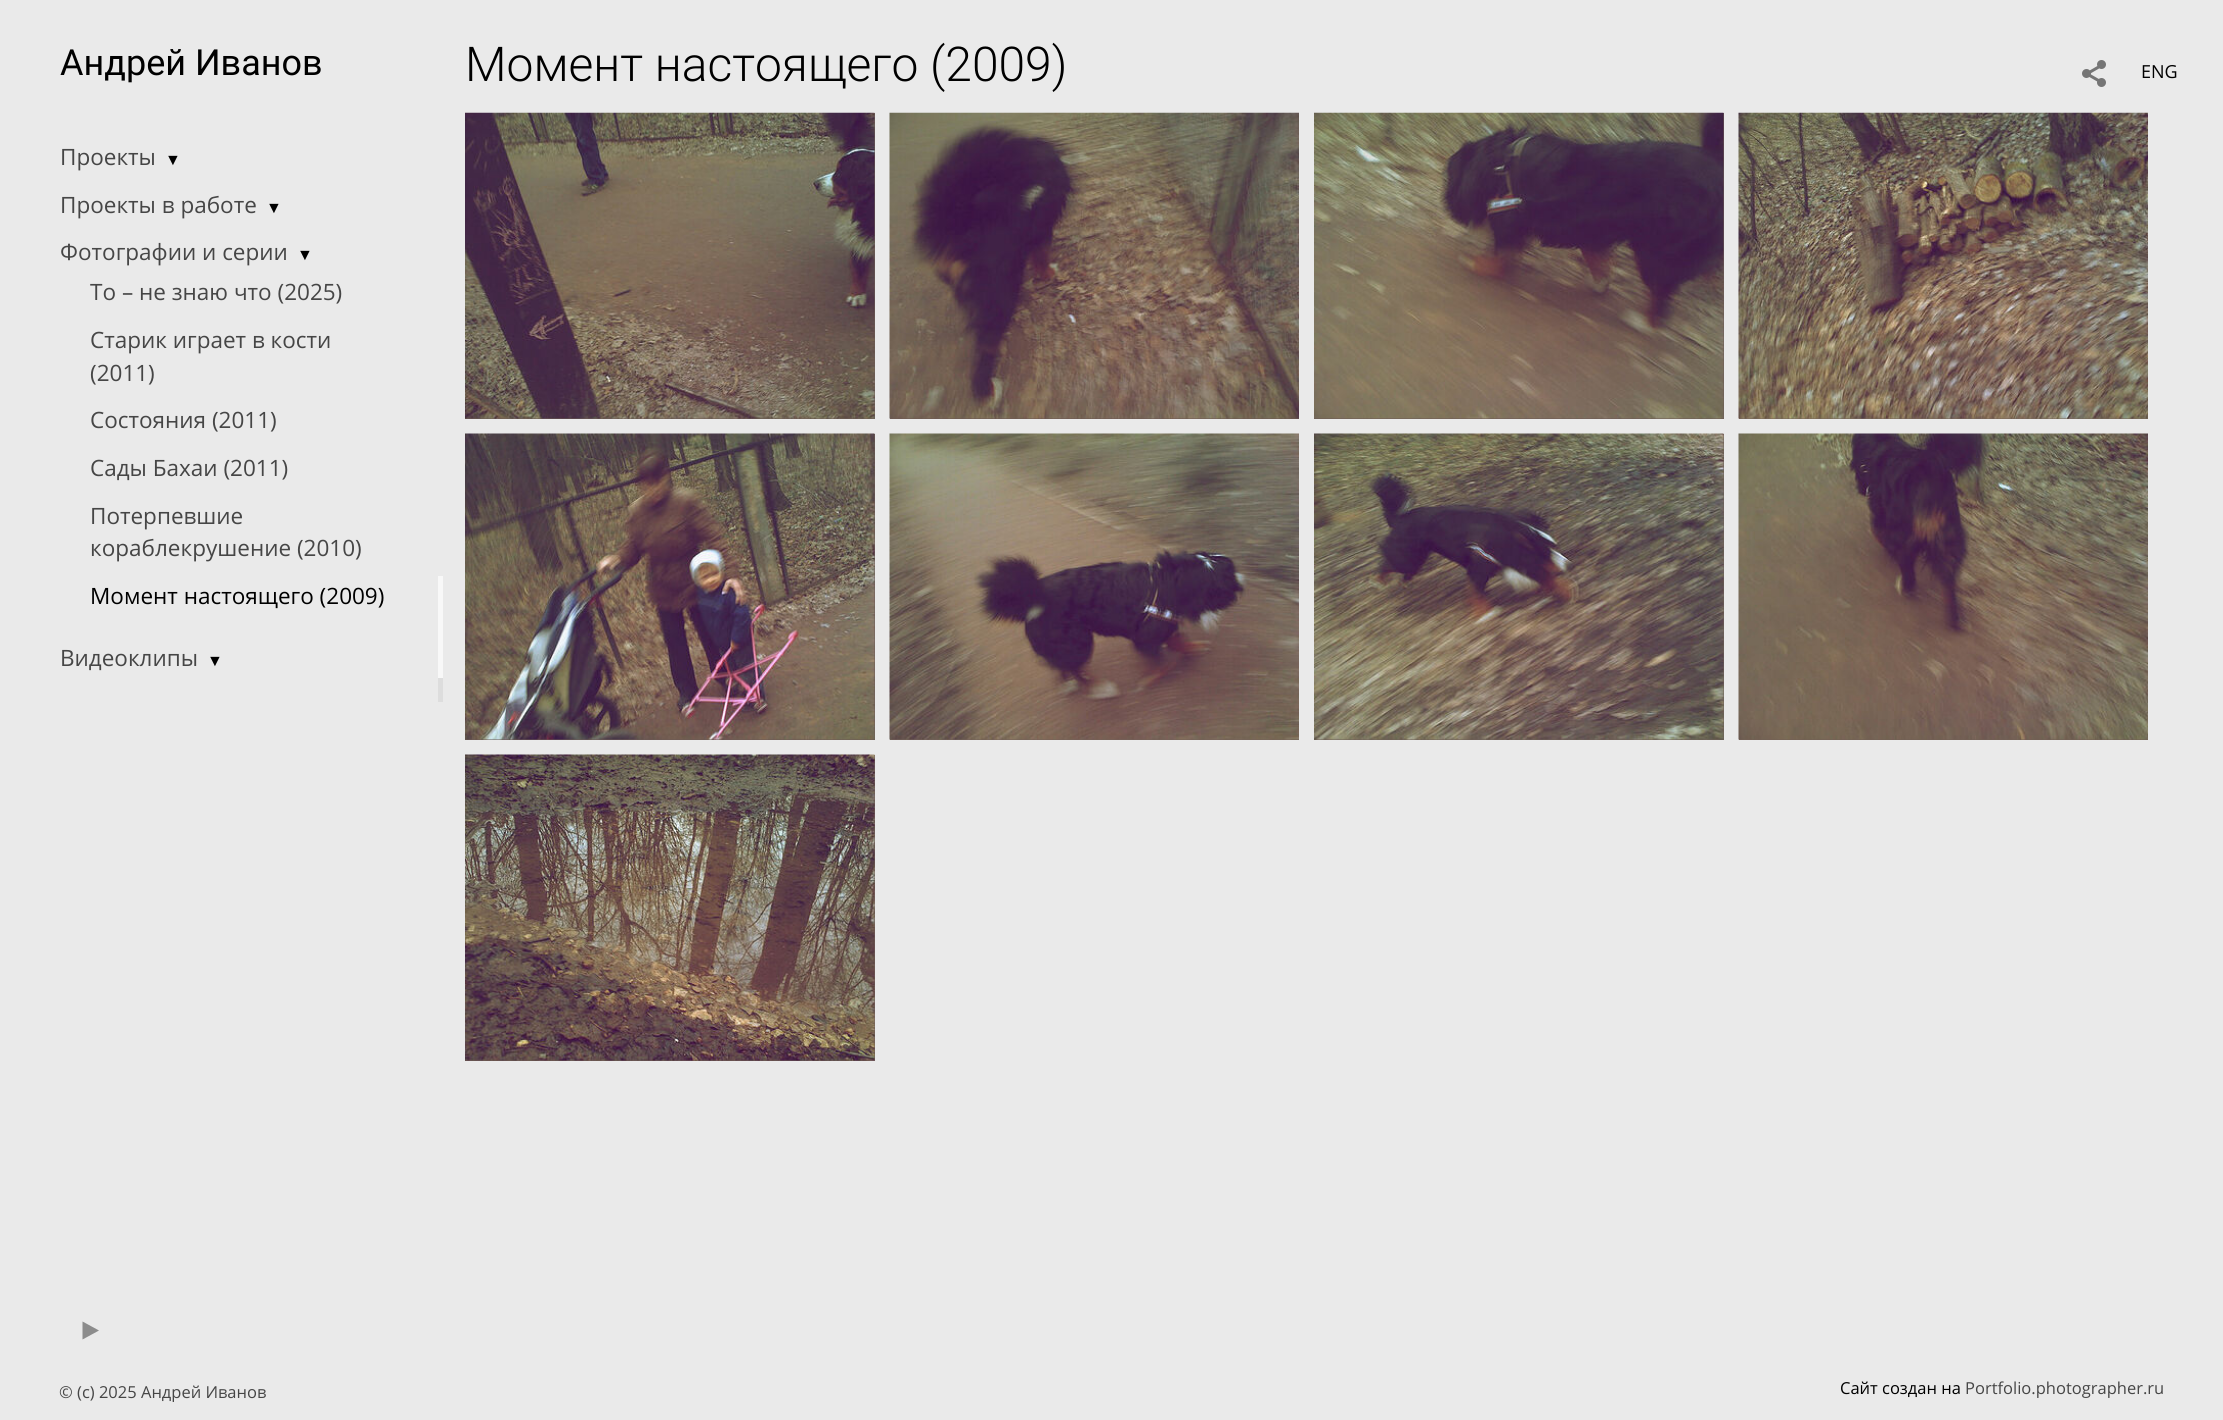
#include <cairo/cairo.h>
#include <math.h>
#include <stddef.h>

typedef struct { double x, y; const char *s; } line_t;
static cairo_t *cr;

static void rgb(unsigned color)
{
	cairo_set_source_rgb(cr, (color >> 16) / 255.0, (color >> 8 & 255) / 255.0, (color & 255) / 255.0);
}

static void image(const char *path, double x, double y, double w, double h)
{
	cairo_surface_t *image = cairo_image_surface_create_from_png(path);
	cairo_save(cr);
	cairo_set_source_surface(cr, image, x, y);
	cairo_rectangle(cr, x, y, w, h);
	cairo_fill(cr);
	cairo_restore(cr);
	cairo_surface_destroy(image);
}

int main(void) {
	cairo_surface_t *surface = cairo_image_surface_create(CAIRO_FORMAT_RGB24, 2223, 1420);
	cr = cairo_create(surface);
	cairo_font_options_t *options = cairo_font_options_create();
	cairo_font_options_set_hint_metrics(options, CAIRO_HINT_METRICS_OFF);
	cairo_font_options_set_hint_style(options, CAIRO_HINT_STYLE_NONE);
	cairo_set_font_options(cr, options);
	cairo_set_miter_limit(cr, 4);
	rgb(0xeaeaea);
	cairo_paint(cr);
	rgb(0x8c8c8c);
	cairo_new_path(cr);
	cairo_move_to(cr, 99, 1330.5);
	cairo_line_to(cr, 82.5, 1339.5);
	cairo_line_to(cr, 82.5, 1321.5);
	cairo_close_path(cr);
	cairo_fill(cr);
	rgb(0xf8f8f8);
	cairo_rectangle(cr, 438, 576, 5, 102);
	cairo_fill(cr);
	rgb(0xdddddd);
	cairo_rectangle(cr, 438, 678, 5, 24);
	cairo_fill(cr);
	image("img/1.png", 2082, 60, 24, 27);
	rgb(0x6d5c55);
	cairo_rectangle(cr, 465, 113, 410, 306);
	cairo_fill(cr);
	image("img/2.png", 465, 112, 410, 307);
	rgb(0x6c5953);
	cairo_rectangle(cr, 890, 418, 409, 1);
	cairo_fill(cr);
	image("img/3.png", 889, 112, 410, 307);
	rgb(0x6d5b56);
	cairo_rectangle(cr, 1314, 113, 410, 306);
	cairo_fill(cr);
	image("img/4.png", 1314, 112, 410, 307);
	rgb(0x77675a);
	cairo_rectangle(cr, 1739, 418, 409, 1);
	cairo_fill(cr);
	image("img/5.png", 1738, 112, 410, 307);
	rgb(0x6c5a56);
	cairo_rectangle(cr, 465, 434, 410, 306);
	cairo_fill(cr);
	image("img/6.png", 465, 433, 410, 307);
	rgb(0x75635b);
	cairo_rectangle(cr, 890, 739, 409, 1);
	cairo_fill(cr);
	image("img/7.png", 889, 433, 410, 307);
	rgb(0x6f6158);
	cairo_rectangle(cr, 1314, 434, 410, 306);
	cairo_fill(cr);
	image("img/8.png", 1314, 433, 410, 307);
	rgb(0x726156);
	cairo_rectangle(cr, 1739, 739, 409, 1);
	cairo_fill(cr);
	image("img/9.png", 1738, 433, 410, 307);
	rgb(0x705d56);
	cairo_rectangle(cr, 465, 755, 410, 306);
	cairo_fill(cr);
	image("img/10.png", 465, 754, 410, 307);
	cairo_select_font_face(cr, "Roboto", CAIRO_FONT_SLANT_NORMAL, CAIRO_FONT_WEIGHT_NORMAL);
	cairo_set_font_size(cr, 36);
	rgb(0x000000);
	cairo_move_to(cr, 60, 75);
	cairo_show_text(cr, "Андрей Иванов");
	cairo_select_font_face(cr, "Open Sans", CAIRO_FONT_SLANT_NORMAL, CAIRO_FONT_WEIGHT_NORMAL);
	cairo_set_font_size(cr, 22.5);
	rgb(0x464646);
	cairo_move_to(cr, 60, 165);
	cairo_show_text(cr, "Проекты");
	cairo_select_font_face(cr, "Liberation Serif", CAIRO_FONT_SLANT_NORMAL, CAIRO_FONT_WEIGHT_NORMAL);
	cairo_set_font_size(cr, 16);
	rgb(0x000000);
	cairo_move_to(cr, 165, 165);
	cairo_show_text(cr, "▼");
	cairo_select_font_face(cr, "Open Sans", CAIRO_FONT_SLANT_NORMAL, CAIRO_FONT_WEIGHT_NORMAL);
	cairo_set_font_size(cr, 22.5);
	rgb(0x464646);
	cairo_move_to(cr, 60, 213);
	cairo_show_text(cr, "Проекты в работе");
	cairo_select_font_face(cr, "Liberation Serif", CAIRO_FONT_SLANT_NORMAL, CAIRO_FONT_WEIGHT_NORMAL);
	cairo_set_font_size(cr, 16);
	rgb(0x000000);
	cairo_move_to(cr, 266, 213);
	cairo_show_text(cr, "▼");
	cairo_select_font_face(cr, "Open Sans", CAIRO_FONT_SLANT_NORMAL, CAIRO_FONT_WEIGHT_NORMAL);
	cairo_set_font_size(cr, 22.5);
	rgb(0x464646);
	cairo_move_to(cr, 60, 260);
	cairo_show_text(cr, "Фотографии и серии");
	cairo_select_font_face(cr, "Liberation Serif", CAIRO_FONT_SLANT_NORMAL, CAIRO_FONT_WEIGHT_NORMAL);
	cairo_set_font_size(cr, 16);
	rgb(0x000000);
	cairo_move_to(cr, 297, 260);
	cairo_show_text(cr, "▼");
	cairo_select_font_face(cr, "Open Sans", CAIRO_FONT_SLANT_NORMAL, CAIRO_FONT_WEIGHT_NORMAL);
	cairo_set_font_size(cr, 22.5);
	rgb(0x464646);
	{
		static const line_t items[] = {
			{90, 300, "То – не знаю что (2025)"},
			{90, 348, "Старик играет в кости"},
			{90, 381, "(2011)"},
			{90, 428, "Состояния (2011)"},
			{90, 476, "Сады Бахаи (2011)"},
			{90, 524, "Потерпевшие"},
			{90, 556, "кораблекрушение (2010)"},
		};
		for (size_t i = 0; i < sizeof items / sizeof *items; i++) {
			cairo_move_to(cr, items[i].x, items[i].y);
			cairo_show_text(cr, items[i].s);
		}
	}
	rgb(0x000000);
	cairo_move_to(cr, 90, 604);
	cairo_show_text(cr, "Момент настоящего (2009)");
	rgb(0x464646);
	cairo_move_to(cr, 60, 666);
	cairo_show_text(cr, "Видеоклипы");
	cairo_select_font_face(cr, "Liberation Serif", CAIRO_FONT_SLANT_NORMAL, CAIRO_FONT_WEIGHT_NORMAL);
	cairo_set_font_size(cr, 16);
	rgb(0x000000);
	cairo_move_to(cr, 207, 666);
	cairo_show_text(cr, "▼");
	cairo_select_font_face(cr, "Roboto Light", CAIRO_FONT_SLANT_NORMAL, CAIRO_FONT_WEIGHT_NORMAL);
	cairo_set_font_size(cr, 48);
	cairo_move_to(cr, 465, 81);
	cairo_show_text(cr, "Момент настоящего (2009)");
	cairo_select_font_face(cr, "Open Sans", CAIRO_FONT_SLANT_NORMAL, CAIRO_FONT_WEIGHT_NORMAL);
	cairo_set_font_size(cr, 18);
	cairo_move_to(cr, 2141, 78);
	cairo_show_text(cr, "ENG");
	cairo_set_font_size(cr, 16.5);
	rgb(0x464646);
	cairo_move_to(cr, 59, 1398);
	cairo_show_text(cr, "© (c) 2025 Андрей Иванов");
	rgb(0x000000);
	cairo_move_to(cr, 1840, 1394);
	cairo_show_text(cr, "Сайт создан на");
	rgb(0x464646);
	cairo_move_to(cr, 1965, 1394);
	cairo_show_text(cr, "Portfolio.photographer.ru");
	cairo_surface_write_to_png(surface, "page.png");
	cairo_font_options_destroy(options);
	cairo_destroy(cr);
	cairo_surface_destroy(surface);
	return 0;
}
